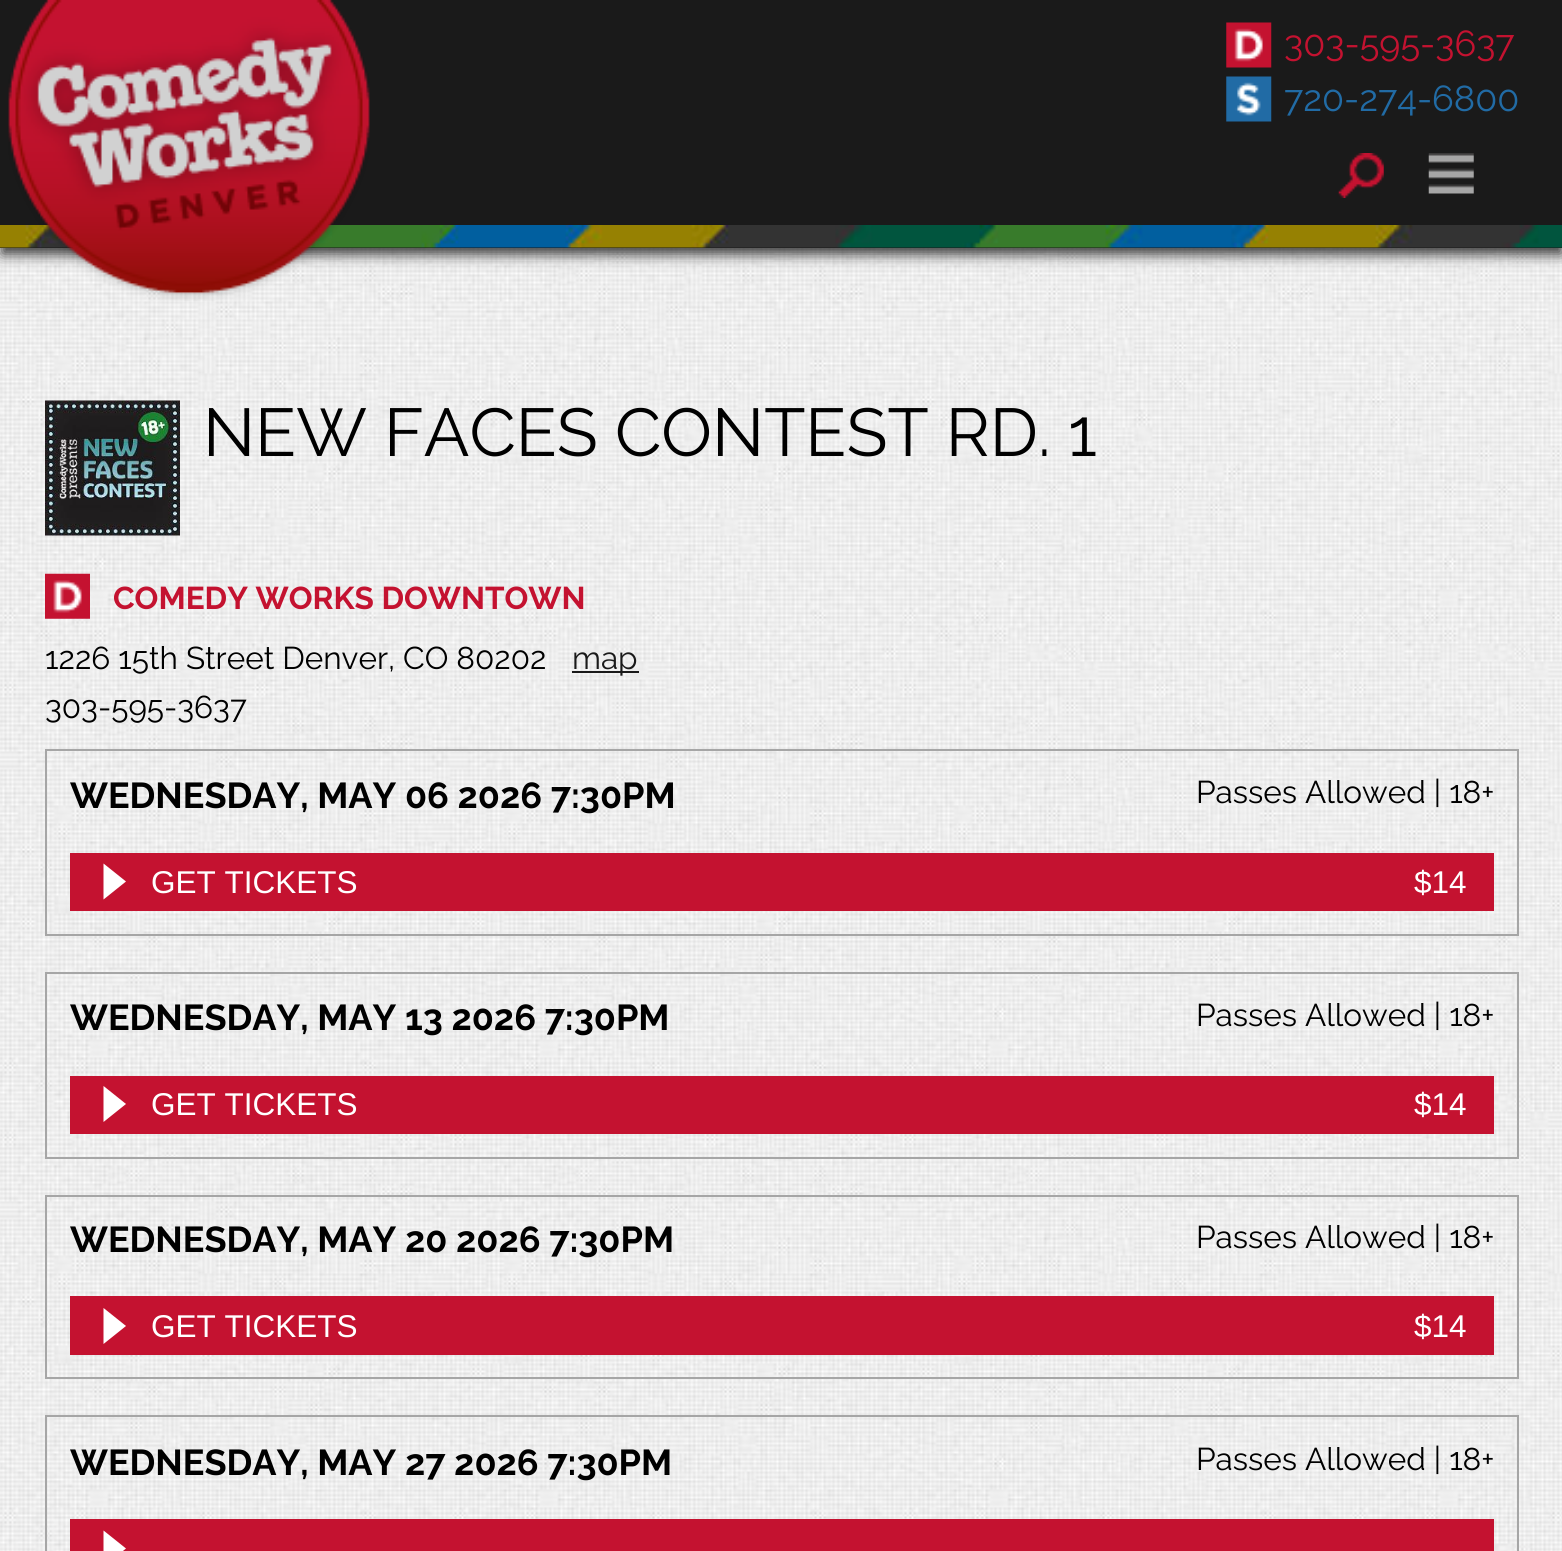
#include <cairo/cairo.h>
#include <math.h>
#include <stddef.h>

static cairo_t *cr;

static void rgb(unsigned color)
{
	cairo_set_source_rgb(cr, (color >> 16) / 255.0, (color >> 8 & 255) / 255.0, (color & 255) / 255.0);
}

static void rrect(double x, double y, double w, double h, double r)
{
	cairo_new_sub_path(cr);
	cairo_arc(cr, x + w - r, y + h - r, r, 0, M_PI / 2);
	cairo_arc(cr, x + r, y + h - r, r, M_PI / 2, M_PI);
	cairo_arc(cr, x + r, y + r, r, M_PI, 1.5 * M_PI);
	cairo_arc(cr, x + w - r, y + r, r, 1.5 * M_PI, 2 * M_PI);
	cairo_close_path(cr);
}

static void soft_shadow(double x, double y, double w, double h, double r, double blur, double alpha)
{
	cairo_push_group_with_content(cr, CAIRO_CONTENT_ALPHA);
	cairo_set_operator(cr, CAIRO_OPERATOR_SOURCE);
	for (int i = 15; i >= -15 && fmin(w, h) + blur * i / 3 > 0; i -= 2) {
		double e = blur * i / 6;
		cairo_set_source_rgba(cr, 0, 0, 0, alpha * erfc((i - 1) / 8.5) / 2);
		rrect(x - e, y - e, w + 2 * e, h + 2 * e, fmax(0, fmin(r + e + blur * .6, fmin(w, h) / 2 + e)));
		cairo_fill(cr);
	}
	cairo_pattern_t *soft = cairo_pop_group(cr);
	cairo_mask(cr, soft);
	cairo_pattern_destroy(soft);
}

static void image(const char *path, double x, double y, double w, double h)
{
	cairo_surface_t *image = cairo_image_surface_create_from_png(path);
	cairo_save(cr);
	cairo_set_source_surface(cr, image, x, y);
	cairo_rectangle(cr, x, y, w, h);
	cairo_fill(cr);
	cairo_restore(cr);
	cairo_surface_destroy(image);
}

int main(void) {
	cairo_surface_t *surface = cairo_image_surface_create(CAIRO_FORMAT_RGB24, 1562, 1551);
	cr = cairo_create(surface);
	cairo_font_options_t *options = cairo_font_options_create();
	cairo_font_options_set_hint_metrics(options, CAIRO_HINT_METRICS_OFF);
	cairo_font_options_set_hint_style(options, CAIRO_HINT_STYLE_NONE);
	cairo_set_font_options(cr, options);
	cairo_set_miter_limit(cr, 4);
	rgb(0xffffff);
	cairo_paint(cr);
	image("img/7.png", 0, 248, 1562, 1303);
	rgb(0x333333);
	soft_shadow(2, 11, 1560, 243, 0, 7, 1);
	rgb(0x1a1a1a);
	cairo_rectangle(cr, 0, 0, 1562, 248);
	cairo_fill(cr);
	image("img/1.png", 0, 225, 1562, 23);
	image("img/2.png", 8, 0, 362, 301);
	image("img/3.png", 1226, 22, 46, 46);
	image("img/4.png", 1226, 76, 46, 46);
	image("img/5.png", 1338, 153, 46, 45);
	image("img/6.png", 1428, 153, 46, 41);
	image("img/8.png", 45, 400, 135, 136);
	image("img/9.png", 45, 573, 45, 46);
	cairo_rectangle(cr, 572, 671, 67, 2);
	cairo_fill(cr);
	cairo_rectangle(cr, 46, 750, 1472, 185);
	rgb(0xa6a6a6);
	cairo_stroke(cr);
	rgb(0xc41230);
	cairo_rectangle(cr, 70, 853, 1424, 58);
	cairo_fill(cr);
	rgb(0xffffff);
	cairo_new_path(cr);
	cairo_move_to(cr, 103.5, 899.5);
	cairo_line_to(cr, 103.5, 863.5);
	cairo_line_to(cr, 126, 881.5);
	cairo_close_path(cr);
	cairo_fill(cr);
	cairo_rectangle(cr, 46, 973, 1472, 185);
	rgb(0xa6a6a6);
	cairo_stroke(cr);
	rgb(0xc41230);
	cairo_rectangle(cr, 70, 1076, 1424, 58);
	cairo_fill(cr);
	rgb(0xffffff);
	cairo_new_path(cr);
	cairo_move_to(cr, 103.5, 1122);
	cairo_line_to(cr, 103.5, 1086);
	cairo_line_to(cr, 126, 1104);
	cairo_close_path(cr);
	cairo_fill(cr);
	cairo_rectangle(cr, 46, 1196, 1472, 182);
	rgb(0xa6a6a6);
	cairo_stroke(cr);
	rgb(0xc41230);
	cairo_rectangle(cr, 70, 1296, 1424, 59);
	cairo_fill(cr);
	rgb(0xffffff);
	cairo_new_path(cr);
	cairo_move_to(cr, 103.5, 1344);
	cairo_line_to(cr, 103.5, 1308);
	cairo_line_to(cr, 126, 1326);
	cairo_close_path(cr);
	cairo_fill(cr);
	cairo_rectangle(cr, 46, 1416, 1472, 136);
	rgb(0xa6a6a6);
	cairo_stroke(cr);
	rgb(0xc41230);
	cairo_rectangle(cr, 70, 1519, 1424, 32);
	cairo_fill(cr);
	rgb(0xffffff);
	cairo_new_path(cr);
	cairo_move_to(cr, 103.5, 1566.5);
	cairo_line_to(cr, 103.5, 1530.5);
	cairo_line_to(cr, 126, 1548.5);
	cairo_close_path(cr);
	cairo_fill(cr);
	cairo_select_font_face(cr, "Raleway", CAIRO_FONT_SLANT_NORMAL, CAIRO_FONT_WEIGHT_NORMAL);
	cairo_set_font_size(cr, 36);
	rgb(0xc41230);
	cairo_move_to(cr, 1284, 56);
	cairo_show_text(cr, "303-595-3637");
	rgb(0x216ba5);
	cairo_move_to(cr, 1284, 111);
	cairo_show_text(cr, "720-274-6800");
	cairo_set_font_size(cr, 67.5);
	rgb(0x000000);
	cairo_move_to(cr, 203, 456);
	cairo_show_text(cr, "NEW FACES CONTEST RD. 1");
	cairo_select_font_face(cr, "Raleway", CAIRO_FONT_SLANT_NORMAL, CAIRO_FONT_WEIGHT_BOLD);
	cairo_set_font_size(cr, 31.5);
	rgb(0xc41230);
	cairo_move_to(cr, 113, 609);
	cairo_show_text(cr, "COMEDY WORKS DOWNTOWN");
	cairo_select_font_face(cr, "Raleway", CAIRO_FONT_SLANT_NORMAL, CAIRO_FONT_WEIGHT_NORMAL);
	rgb(0x000000);
	cairo_move_to(cr, 45, 669);
	cairo_show_text(cr, "1226 15th Street Denver, CO 80202");
	rgb(0x1a1a1a);
	cairo_move_to(cr, 572, 669);
	cairo_show_text(cr, "map");
	rgb(0x000000);
	cairo_move_to(cr, 45, 718);
	cairo_show_text(cr, "303-595-3637");
	cairo_select_font_face(cr, "Raleway", CAIRO_FONT_SLANT_NORMAL, CAIRO_FONT_WEIGHT_BOLD);
	cairo_set_font_size(cr, 36);
	cairo_move_to(cr, 70, 808);
	cairo_show_text(cr, "WEDNESDAY, MAY 06 2026 7:30PM");
	cairo_select_font_face(cr, "Raleway", CAIRO_FONT_SLANT_NORMAL, CAIRO_FONT_WEIGHT_NORMAL);
	cairo_set_font_size(cr, 31.5);
	cairo_move_to(cr, 1196, 803);
	cairo_show_text(cr, "Passes Allowed | 18+");
	cairo_select_font_face(cr, "Liberation Sans", CAIRO_FONT_SLANT_NORMAL, CAIRO_FONT_WEIGHT_NORMAL);
	rgb(0xffffff);
	cairo_move_to(cr, 151, 893);
	cairo_show_text(cr, "GET TICKETS");
	cairo_move_to(cr, 1414, 893);
	cairo_show_text(cr, "$14");
	cairo_select_font_face(cr, "Raleway", CAIRO_FONT_SLANT_NORMAL, CAIRO_FONT_WEIGHT_BOLD);
	cairo_set_font_size(cr, 36);
	rgb(0x000000);
	cairo_move_to(cr, 70, 1030);
	cairo_show_text(cr, "WEDNESDAY, MAY 13 2026 7:30PM");
	cairo_select_font_face(cr, "Raleway", CAIRO_FONT_SLANT_NORMAL, CAIRO_FONT_WEIGHT_NORMAL);
	cairo_set_font_size(cr, 31.5);
	cairo_move_to(cr, 1196, 1026);
	cairo_show_text(cr, "Passes Allowed | 18+");
	cairo_select_font_face(cr, "Liberation Sans", CAIRO_FONT_SLANT_NORMAL, CAIRO_FONT_WEIGHT_NORMAL);
	rgb(0xffffff);
	cairo_move_to(cr, 151, 1115);
	cairo_show_text(cr, "GET TICKETS");
	cairo_move_to(cr, 1414, 1115);
	cairo_show_text(cr, "$14");
	cairo_select_font_face(cr, "Raleway", CAIRO_FONT_SLANT_NORMAL, CAIRO_FONT_WEIGHT_BOLD);
	cairo_set_font_size(cr, 36);
	rgb(0x000000);
	cairo_move_to(cr, 70, 1252);
	cairo_show_text(cr, "WEDNESDAY, MAY 20 2026 7:30PM");
	cairo_select_font_face(cr, "Raleway", CAIRO_FONT_SLANT_NORMAL, CAIRO_FONT_WEIGHT_NORMAL);
	cairo_set_font_size(cr, 31.5);
	cairo_move_to(cr, 1196, 1248);
	cairo_show_text(cr, "Passes Allowed | 18+");
	cairo_select_font_face(cr, "Liberation Sans", CAIRO_FONT_SLANT_NORMAL, CAIRO_FONT_WEIGHT_NORMAL);
	rgb(0xffffff);
	cairo_move_to(cr, 151, 1337);
	cairo_show_text(cr, "GET TICKETS");
	cairo_move_to(cr, 1414, 1337);
	cairo_show_text(cr, "$14");
	cairo_select_font_face(cr, "Raleway", CAIRO_FONT_SLANT_NORMAL, CAIRO_FONT_WEIGHT_BOLD);
	cairo_set_font_size(cr, 36);
	rgb(0x000000);
	cairo_move_to(cr, 70, 1475);
	cairo_show_text(cr, "WEDNESDAY, MAY 27 2026 7:30PM");
	cairo_select_font_face(cr, "Raleway", CAIRO_FONT_SLANT_NORMAL, CAIRO_FONT_WEIGHT_NORMAL);
	cairo_set_font_size(cr, 31.5);
	cairo_move_to(cr, 1196, 1470);
	cairo_show_text(cr, "Passes Allowed | 18+");
	cairo_surface_write_to_png(surface, "page.png");
	cairo_font_options_destroy(options);
	cairo_destroy(cr);
	cairo_surface_destroy(surface);
	return 0;
}
